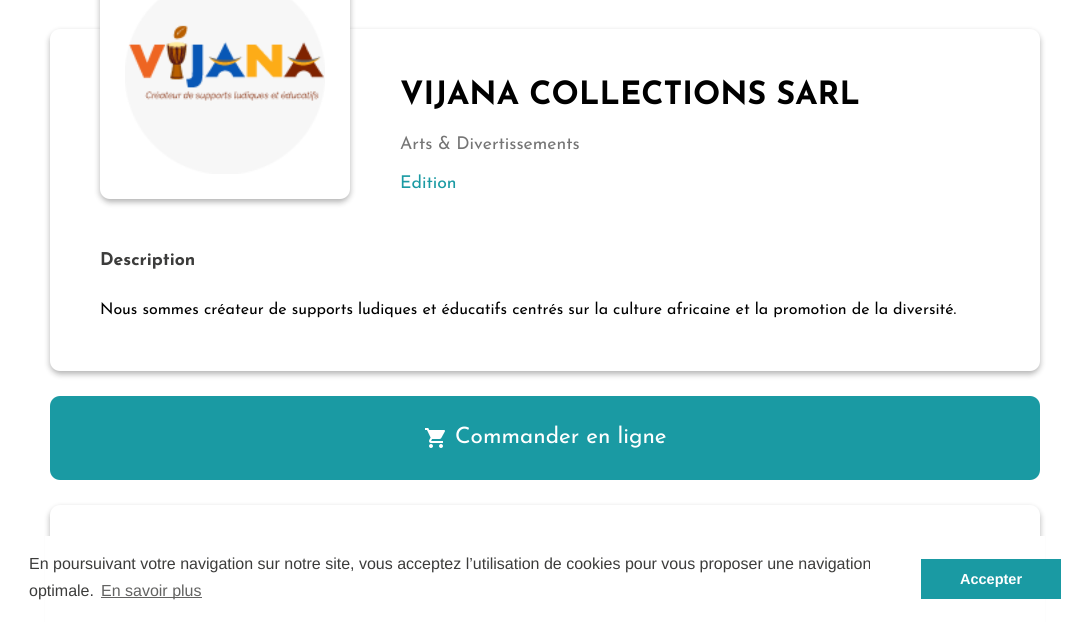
#include <cairo/cairo.h>
#include <math.h>
#include <stddef.h>

typedef struct { double x, y, w, h; unsigned color; } box_t;
static cairo_t *cr;

static void rgb(unsigned color)
{
	cairo_set_source_rgb(cr, (color >> 16) / 255.0, (color >> 8 & 255) / 255.0, (color & 255) / 255.0);
}

static void rrect(double x, double y, double w, double h, double r)
{
	cairo_new_sub_path(cr);
	cairo_arc(cr, x + w - r, y + h - r, r, 0, M_PI / 2);
	cairo_arc(cr, x + r, y + h - r, r, M_PI / 2, M_PI);
	cairo_arc(cr, x + r, y + r, r, M_PI, 1.5 * M_PI);
	cairo_arc(cr, x + w - r, y + r, r, 1.5 * M_PI, 2 * M_PI);
	cairo_close_path(cr);
}

static void soft_shadow(double x, double y, double w, double h, double r, double blur, double alpha)
{
	cairo_push_group_with_content(cr, CAIRO_CONTENT_ALPHA);
	cairo_set_operator(cr, CAIRO_OPERATOR_SOURCE);
	for (int i = 15; i >= -15 && fmin(w, h) + blur * i / 3 > 0; i -= 2) {
		double e = blur * i / 6;
		cairo_set_source_rgba(cr, 0, 0, 0, alpha * erfc((i - 1) / 8.5) / 2);
		rrect(x - e, y - e, w + 2 * e, h + 2 * e, fmax(0, fmin(r + e + blur * .6, fmin(w, h) / 2 + e)));
		cairo_fill(cr);
	}
	cairo_pattern_t *soft = cairo_pop_group(cr);
	cairo_mask(cr, soft);
	cairo_pattern_destroy(soft);
}

static void image(const char *path, double x, double y, double w, double h)
{
	cairo_surface_t *image = cairo_image_surface_create_from_png(path);
	cairo_save(cr);
	cairo_set_source_surface(cr, image, x, y);
	cairo_rectangle(cr, x, y, w, h);
	cairo_fill(cr);
	cairo_restore(cr);
	cairo_surface_destroy(image);
}

int main(void) {
	cairo_surface_t *surface = cairo_image_surface_create(CAIRO_FORMAT_RGB24, 1090, 622);
	cr = cairo_create(surface);
	cairo_font_options_t *options = cairo_font_options_create();
	cairo_font_options_set_hint_metrics(options, CAIRO_HINT_METRICS_OFF);
	cairo_font_options_set_hint_style(options, CAIRO_HINT_STYLE_NONE);
	cairo_set_font_options(cr, options);
	cairo_set_miter_limit(cr, 4);
	rgb(0xffffff);
	cairo_paint(cr);
	rgb(0x000000);
	soft_shadow(50, 32, 990, 342, 10, 3, 0.3);
	rgb(0xffffff);
	rrect(50, 29, 990, 342, 10);
	cairo_fill(cr);
	rgb(0x000000);
	soft_shadow(100, -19, 250, 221, 10, 3, 0.3);
	rgb(0xffffff);
	rrect(100, -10, 250, 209, 10);
	cairo_fill(cr);
	image("img/1.png", 125, 0, 200, 174);
	rgb(0x1a9aa3);
	rrect(50, 396, 990, 84, 10);
	cairo_fill(cr);
	image("img/2.png", 425, 428, 20, 20);
	rgb(0x000000);
	soft_shadow(50, 508, 990, 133, 10, 3, 0.3);
	rgb(0xffffff);
	rrect(50, 505, 990, 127, 10);
	cairo_fill(cr);
	{
		static const box_t items[] = {
			{45, 536, 1000, 86, 0xffffff},
			{101, 597, 101, 1, 0x636362},
			{921, 559, 140, 40, 0x1a9aa3},
		};
		for (size_t i = 0; i < sizeof items / sizeof *items; i++) {
			rgb(items[i].color);
			cairo_rectangle(cr, items[i].x, items[i].y, items[i].w, items[i].h);
			cairo_fill(cr);
		}
	}
	cairo_select_font_face(cr, "Josefin Sans", CAIRO_FONT_SLANT_NORMAL, CAIRO_FONT_WEIGHT_BOLD);
	cairo_set_font_size(cr, 32);
	rgb(0x000000);
	cairo_move_to(cr, 400, 104);
	cairo_show_text(cr, "VIJANA COLLECTIONS SARL");
	cairo_select_font_face(cr, "Josefin Sans", CAIRO_FONT_SLANT_NORMAL, CAIRO_FONT_WEIGHT_NORMAL);
	cairo_set_font_size(cr, 17.6);
	rgb(0x757575);
	cairo_move_to(cr, 400, 149);
	cairo_show_text(cr, "Arts & Divertissements");
	rgb(0x1a9aa3);
	cairo_move_to(cr, 400, 188);
	cairo_show_text(cr, "Edition");
	cairo_select_font_face(cr, "Josefin Sans", CAIRO_FONT_SLANT_NORMAL, CAIRO_FONT_WEIGHT_BOLD);
	rgb(0x3c3c3b);
	cairo_move_to(cr, 100, 265);
	cairo_show_text(cr, "Description");
	cairo_select_font_face(cr, "Josefin Sans", CAIRO_FONT_SLANT_NORMAL, CAIRO_FONT_WEIGHT_NORMAL);
	cairo_set_font_size(cr, 16);
	rgb(0x000000);
	cairo_move_to(cr, 100, 314);
	cairo_show_text(cr, "Nous sommes créateur de supports ludiques et éducatifs centrés sur la culture africaine et la promotion de la diversité.");
	cairo_set_font_size(cr, 22.5);
	rgb(0xffffff);
	cairo_move_to(cr, 455, 443);
	cairo_show_text(cr, "Commander en ligne");
	cairo_select_font_face(cr, "Liberation Sans", CAIRO_FONT_SLANT_NORMAL, CAIRO_FONT_WEIGHT_NORMAL);
	cairo_set_font_size(cr, 16);
	rgb(0x3c3c3b);
	cairo_move_to(cr, 29, 569);
	cairo_show_text(cr, "En poursuivant votre navigation sur notre site, vous acceptez l’utilisation de cookies pour vous proposer une navigation");
	cairo_move_to(cr, 29, 596);
	cairo_show_text(cr, "optimale.");
	rgb(0x636362);
	cairo_move_to(cr, 101, 596);
	cairo_show_text(cr, "En savoir plus");
	cairo_select_font_face(cr, "Liberation Sans", CAIRO_FONT_SLANT_NORMAL, CAIRO_FONT_WEIGHT_BOLD);
	cairo_set_font_size(cr, 14.5);
	rgb(0xffffff);
	cairo_move_to(cr, 960, 584);
	cairo_show_text(cr, "Accepter");
	cairo_surface_write_to_png(surface, "page.png");
	cairo_font_options_destroy(options);
	cairo_destroy(cr);
	cairo_surface_destroy(surface);
	return 0;
}
